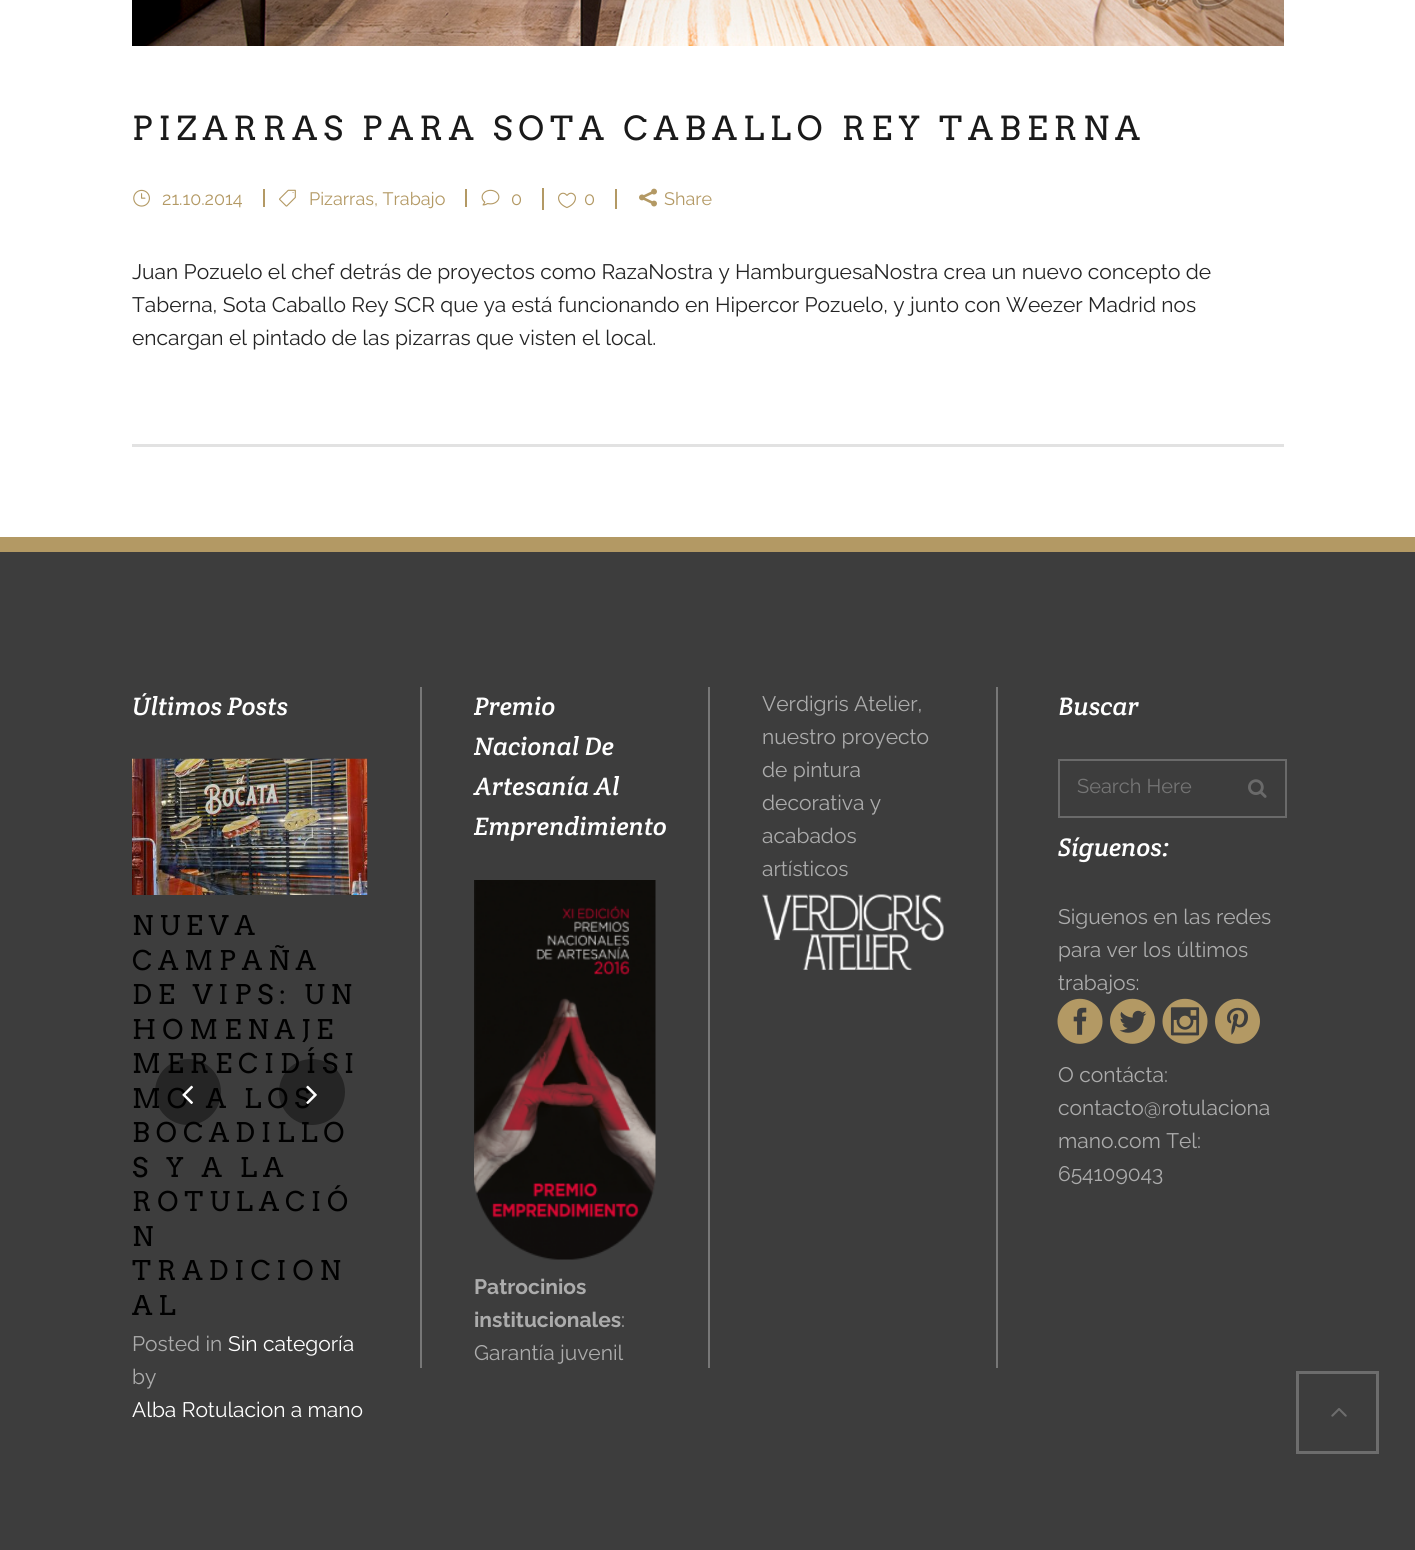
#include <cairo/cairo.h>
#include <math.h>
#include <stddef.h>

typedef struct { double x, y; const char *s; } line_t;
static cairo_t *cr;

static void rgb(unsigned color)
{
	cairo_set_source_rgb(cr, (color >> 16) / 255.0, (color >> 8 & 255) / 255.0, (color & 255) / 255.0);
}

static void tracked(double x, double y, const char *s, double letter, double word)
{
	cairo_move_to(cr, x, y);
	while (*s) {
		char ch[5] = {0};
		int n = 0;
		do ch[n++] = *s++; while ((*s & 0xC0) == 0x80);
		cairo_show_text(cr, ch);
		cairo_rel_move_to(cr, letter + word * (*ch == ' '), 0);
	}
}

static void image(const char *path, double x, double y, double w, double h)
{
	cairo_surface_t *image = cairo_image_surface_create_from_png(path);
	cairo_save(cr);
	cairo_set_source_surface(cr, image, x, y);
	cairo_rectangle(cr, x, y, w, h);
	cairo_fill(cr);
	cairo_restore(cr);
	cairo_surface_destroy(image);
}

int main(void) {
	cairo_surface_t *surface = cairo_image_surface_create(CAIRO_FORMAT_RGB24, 1415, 1550);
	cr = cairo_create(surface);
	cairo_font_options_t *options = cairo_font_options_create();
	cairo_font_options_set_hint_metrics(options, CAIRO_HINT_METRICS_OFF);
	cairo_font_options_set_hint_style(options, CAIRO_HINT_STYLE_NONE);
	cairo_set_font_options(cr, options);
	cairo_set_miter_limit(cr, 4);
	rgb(0xffffff);
	cairo_paint(cr);
	rgb(0xe2e2e2);
	cairo_rectangle(cr, 132, 444, 1152, 3);
	cairo_fill(cr);
	image("img/1.png", 132, 0, 1152, 46);
	image("img/2.png", 133, 189, 17, 18);
	image("img/3.png", 279, 189, 17, 18);
	rgb(0xb39964);
	cairo_rectangle(cr, 263, 189, 2, 18);
	cairo_fill(cr);
	image("img/4.png", 481, 189, 19, 17);
	cairo_rectangle(cr, 465, 189, 2, 18);
	cairo_fill(cr);
	cairo_rectangle(cr, 542, 188, 2, 22);
	cairo_fill(cr);
	image("img/5.png", 558, 192, 18, 17);
	cairo_rectangle(cr, 615, 189, 2, 20);
	cairo_fill(cr);
	image("img/6.png", 639, 188, 18, 19);
	rgb(0x3d3d3d);
	cairo_rectangle(cr, 0, 552, 1415, 998);
	cairo_fill(cr);
	rgb(0xb39964);
	cairo_rectangle(cr, 0, 537, 1415, 15);
	cairo_fill(cr);
	image("img/7.png", 132, 758, 236, 137);
	rgb(0x777777);
	cairo_rectangle(cr, 420, 687, 2, 681);
	cairo_fill(cr);
	image("img/10.png", 474, 880, 182, 380);
	cairo_rectangle(cr, 708, 687, 2, 681);
	cairo_fill(cr);
	image("img/11.png", 762, 894, 182, 76);
	cairo_rectangle(cr, 996, 687, 2, 681);
	cairo_fill(cr);
	cairo_rectangle(cr, 1059, 760, 227, 57);
	rgb(0x6a6a6a);
	cairo_stroke(cr);
	image("img/12.png", 1248, 779, 19, 19);
	image("img/13.png", 1057, 998, 46, 46);
	image("img/14.png", 1110, 998, 45, 46);
	image("img/15.png", 1162, 998, 46, 46);
	image("img/16.png", 1215, 998, 45, 46);
	cairo_rectangle(cr, 1297.5, 1372.5, 80, 80);
	rgb(0x6d6d6d);
	cairo_set_line_width(cr, 3);
	cairo_stroke(cr);
	image("img/17.png", 1331, 1408, 16, 9);
	cairo_select_font_face(cr, "Arvo", CAIRO_FONT_SLANT_NORMAL, CAIRO_FONT_WEIGHT_NORMAL);
	cairo_set_font_size(cr, 33);
	rgb(0x1a1a1a);
	tracked(132, 140, "PIZARRAS PARA SOTA CABALLO REY TABERNA", 6, 0);
	cairo_select_font_face(cr, "Raleway", CAIRO_FONT_SLANT_NORMAL, CAIRO_FONT_WEIGHT_NORMAL);
	cairo_set_font_size(cr, 18);
	rgb(0xb39964);
	{
		static const line_t items[] = {
			{162, 205, "21.10.2014"},
			{309, 205, "Pizarras, Trabajo"},
			{511, 205, "0"},
			{584, 205, "0"},
			{664, 205, "Share"},
		};
		for (size_t i = 0; i < sizeof items / sizeof *items; i++) {
			cairo_move_to(cr, items[i].x, items[i].y);
			cairo_show_text(cr, items[i].s);
		}
	}
	cairo_set_font_size(cr, 21);
	rgb(0x242424);
	{
		static const line_t items[] = {
			{132, 279, "Juan Pozuelo el chef detrás de proyectos como RazaNostra y HamburguesaNostra crea un nuevo concepto de"},
			{132, 312, "Taberna, Sota Caballo Rey SCR que ya está funcionando en Hipercor Pozuelo, y junto con Weezer Madrid nos"},
			{132, 345, "encargan el pintado de las pizarras que visten el local."},
		};
		for (size_t i = 0; i < sizeof items / sizeof *items; i++) {
			cairo_move_to(cr, items[i].x, items[i].y);
			cairo_show_text(cr, items[i].s);
		}
	}
	cairo_select_font_face(cr, "Crete Round", CAIRO_FONT_SLANT_ITALIC, CAIRO_FONT_WEIGHT_NORMAL);
	cairo_set_font_size(cr, 25.5);
	rgb(0xffffff);
	cairo_move_to(cr, 132, 715);
	cairo_show_text(cr, "Últimos Posts");
	cairo_select_font_face(cr, "Arvo", CAIRO_FONT_SLANT_NORMAL, CAIRO_FONT_WEIGHT_NORMAL);
	cairo_set_font_size(cr, 27);
	rgb(0x000000);
	{
		static const line_t items[] = {
			{132, 935, "NUEVA"},
			{132, 970, "CAMPAÑA"},
			{132, 1004, "DE VIPS: UN"},
			{132, 1039, "HOMENAJE"},
			{132, 1073, "MERECIDÍSI"},
			{132, 1108, "MO A LOS"},
			{132, 1142, "BOCADILLO"},
			{132, 1177, "S Y A LA"},
			{132, 1211, "ROTULACIÓ"},
			{132, 1246, "N"},
			{132, 1280, "TRADICION"},
			{132, 1315, "AL"},
		};
		for (size_t i = 0; i < sizeof items / sizeof *items; i++) {
			tracked(items[i].x, items[i].y, items[i].s, 6, 0);
		}
	}
	cairo_select_font_face(cr, "Raleway", CAIRO_FONT_SLANT_NORMAL, CAIRO_FONT_WEIGHT_NORMAL);
	cairo_set_font_size(cr, 21);
	rgb(0xacacac);
	cairo_move_to(cr, 132, 1351);
	cairo_show_text(cr, "Posted in");
	rgb(0xffffff);
	cairo_move_to(cr, 228, 1351);
	cairo_show_text(cr, "Sin categoría");
	rgb(0xacacac);
	cairo_move_to(cr, 132, 1384);
	cairo_show_text(cr, "by");
	rgb(0xffffff);
	cairo_move_to(cr, 132, 1417);
	cairo_show_text(cr, "Alba Rotulacion a mano");
	cairo_set_source_rgba(cr, 0, 0, 0, 0.4);
	cairo_new_path(cr);
	cairo_arc(cr, 188, 1092, 33, 0, 2 * M_PI);
	cairo_fill(cr);
	image("img/8.png", 182, 1085, 11, 19);
	cairo_arc(cr, 312, 1092, 33, 0, 2 * M_PI);
	cairo_fill(cr);
	image("img/9.png", 306, 1085, 11, 19);
	cairo_select_font_face(cr, "Crete Round", CAIRO_FONT_SLANT_ITALIC, CAIRO_FONT_WEIGHT_NORMAL);
	cairo_set_font_size(cr, 25.5);
	rgb(0xffffff);
	{
		static const line_t items[] = {
			{474, 715, "Premio"},
			{474, 755, "Nacional De"},
			{474, 795, "Artesanía Al"},
			{474, 835, "Emprendimiento"},
		};
		for (size_t i = 0; i < sizeof items / sizeof *items; i++) {
			cairo_move_to(cr, items[i].x, items[i].y);
			cairo_show_text(cr, items[i].s);
		}
	}
	cairo_select_font_face(cr, "Raleway", CAIRO_FONT_SLANT_NORMAL, CAIRO_FONT_WEIGHT_BOLD);
	cairo_set_font_size(cr, 21);
	rgb(0xacacac);
	cairo_move_to(cr, 474, 1294);
	cairo_show_text(cr, "Patrocinios");
	cairo_move_to(cr, 474, 1327);
	cairo_show_text(cr, "institucionales");
	cairo_select_font_face(cr, "Raleway", CAIRO_FONT_SLANT_NORMAL, CAIRO_FONT_WEIGHT_NORMAL);
	{
		static const line_t items[] = {
			{621, 1327, ":"},
			{474, 1360, "Garantía juvenil"},
			{762, 711, "Verdigris Atelier,"},
			{762, 744, "nuestro proyecto"},
			{762, 777, "de pintura"},
			{762, 810, "decorativa y"},
			{762, 843, "acabados"},
			{762, 876, "artísticos"},
		};
		for (size_t i = 0; i < sizeof items / sizeof *items; i++) {
			cairo_move_to(cr, items[i].x, items[i].y);
			cairo_show_text(cr, items[i].s);
		}
	}
	cairo_select_font_face(cr, "Crete Round", CAIRO_FONT_SLANT_ITALIC, CAIRO_FONT_WEIGHT_NORMAL);
	cairo_set_font_size(cr, 25.5);
	rgb(0xffffff);
	cairo_move_to(cr, 1058, 715);
	cairo_show_text(cr, "Buscar");
	cairo_select_font_face(cr, "Raleway", CAIRO_FONT_SLANT_NORMAL, CAIRO_FONT_WEIGHT_NORMAL);
	cairo_set_font_size(cr, 20);
	rgb(0x757575);
	cairo_move_to(cr, 1077, 793);
	cairo_show_text(cr, "Search Here");
	cairo_select_font_face(cr, "Crete Round", CAIRO_FONT_SLANT_ITALIC, CAIRO_FONT_WEIGHT_NORMAL);
	cairo_set_font_size(cr, 25.5);
	rgb(0xffffff);
	cairo_move_to(cr, 1058, 856);
	cairo_show_text(cr, "Síguenos:");
	cairo_select_font_face(cr, "Raleway", CAIRO_FONT_SLANT_NORMAL, CAIRO_FONT_WEIGHT_NORMAL);
	cairo_set_font_size(cr, 21);
	rgb(0xacacac);
	{
		static const line_t items[] = {
			{1058, 924, "Siguenos en las redes"},
			{1058, 957, "para ver los últimos"},
			{1058, 990, "trabajos:"},
			{1058, 1082, "O contácta:"},
			{1058, 1115, "contacto@rotulaciona"},
			{1058, 1148, "mano.com Tel:"},
			{1058, 1181, "654109043"},
		};
		for (size_t i = 0; i < sizeof items / sizeof *items; i++) {
			cairo_move_to(cr, items[i].x, items[i].y);
			cairo_show_text(cr, items[i].s);
		}
	}
	cairo_surface_write_to_png(surface, "page.png");
	cairo_font_options_destroy(options);
	cairo_destroy(cr);
	cairo_surface_destroy(surface);
	return 0;
}
